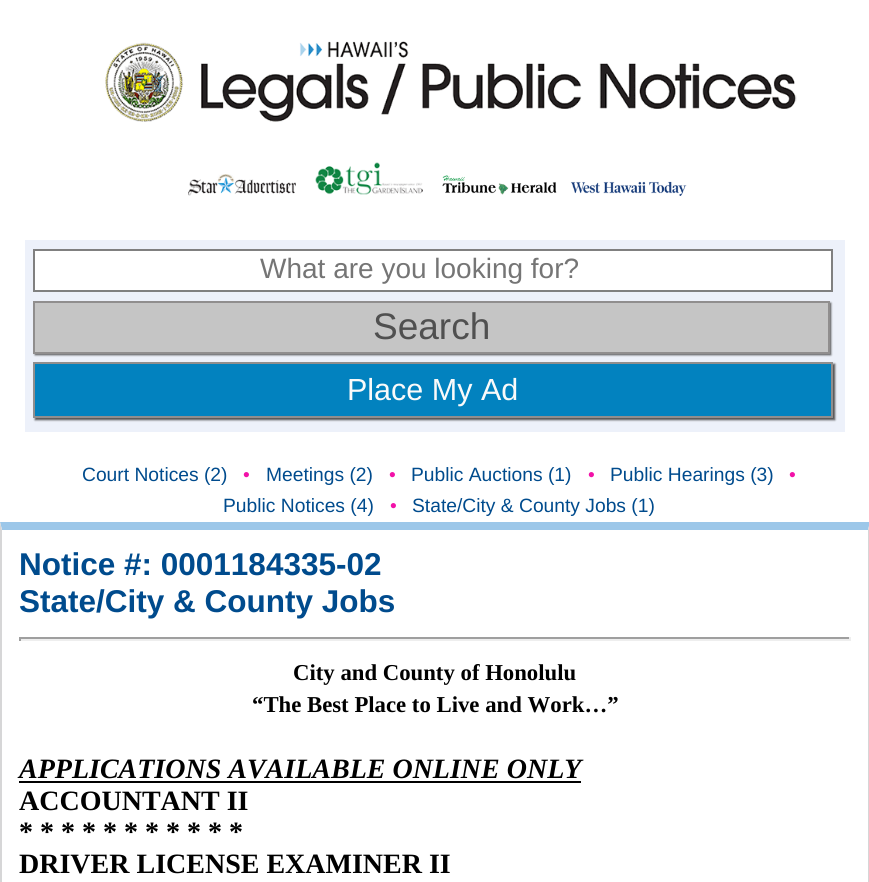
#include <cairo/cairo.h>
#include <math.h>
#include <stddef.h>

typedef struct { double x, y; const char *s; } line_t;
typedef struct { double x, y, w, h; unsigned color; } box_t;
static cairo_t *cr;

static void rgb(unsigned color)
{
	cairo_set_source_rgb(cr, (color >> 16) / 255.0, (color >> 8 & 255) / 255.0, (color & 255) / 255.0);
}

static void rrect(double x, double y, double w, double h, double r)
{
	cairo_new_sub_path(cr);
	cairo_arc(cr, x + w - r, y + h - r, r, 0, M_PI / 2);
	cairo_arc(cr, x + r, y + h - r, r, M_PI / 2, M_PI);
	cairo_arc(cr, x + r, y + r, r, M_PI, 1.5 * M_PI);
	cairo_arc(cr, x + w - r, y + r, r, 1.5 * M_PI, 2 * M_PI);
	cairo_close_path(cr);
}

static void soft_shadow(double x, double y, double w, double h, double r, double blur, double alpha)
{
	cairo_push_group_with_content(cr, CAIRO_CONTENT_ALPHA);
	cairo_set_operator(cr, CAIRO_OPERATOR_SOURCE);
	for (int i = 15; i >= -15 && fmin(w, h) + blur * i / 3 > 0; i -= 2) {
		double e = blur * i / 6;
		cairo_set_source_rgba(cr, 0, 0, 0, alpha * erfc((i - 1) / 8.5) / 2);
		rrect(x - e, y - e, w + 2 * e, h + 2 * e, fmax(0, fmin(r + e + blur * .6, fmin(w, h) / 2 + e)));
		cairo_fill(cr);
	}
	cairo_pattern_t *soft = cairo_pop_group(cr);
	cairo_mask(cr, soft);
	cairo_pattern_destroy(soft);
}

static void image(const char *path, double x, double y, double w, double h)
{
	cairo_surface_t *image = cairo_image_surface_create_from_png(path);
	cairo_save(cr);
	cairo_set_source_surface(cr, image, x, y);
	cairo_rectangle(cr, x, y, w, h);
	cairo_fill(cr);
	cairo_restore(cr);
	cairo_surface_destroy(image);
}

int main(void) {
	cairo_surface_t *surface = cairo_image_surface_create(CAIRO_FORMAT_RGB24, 869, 882);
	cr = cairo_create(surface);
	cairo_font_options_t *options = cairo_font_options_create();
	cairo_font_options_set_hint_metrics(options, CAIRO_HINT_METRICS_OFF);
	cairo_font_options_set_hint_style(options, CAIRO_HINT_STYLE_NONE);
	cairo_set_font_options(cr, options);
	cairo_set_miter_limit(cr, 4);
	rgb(0xffffff);
	cairo_paint(cr);
	image("img/1.png", 105, 41, 692, 81);
	image("img/2.png", 188, 174, 108, 22);
	image("img/3.png", 315, 162, 108, 33);
	image("img/4.png", 442, 175, 115, 20);
	image("img/5.png", 570, 181, 117, 15);
	rgb(0xedf1fa);
	cairo_rectangle(cr, 25, 240, 820, 192);
	cairo_fill(cr);
	rgb(0xffffff);
	cairo_rectangle(cr, 34, 250, 798, 41);
	cairo_fill_preserve(cr);
	rgb(0x808080);
	cairo_stroke(cr);
	rgb(0x505050);
	soft_shadow(35, 303, 796, 52, 0, 1, 1);
	rgb(0xc5c5c5);
	cairo_rectangle(cr, 34, 302, 795, 51);
	cairo_fill_preserve(cr);
	rgb(0x908e8e);
	cairo_stroke(cr);
	rgb(0x505050);
	soft_shadow(35, 364, 800, 56, 0, 1, 1);
	rgb(0x0282bf);
	cairo_rectangle(cr, 34, 363, 798, 54);
	cairo_fill_preserve(cr);
	rgb(0x908e8e);
	cairo_stroke(cr);
	rgb(0x9cc7e9);
	cairo_new_path(cr);
	cairo_move_to(cr, 0, 522);
	cairo_line_to(cr, 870, 522);
	cairo_line_to(cr, 868, 530);
	cairo_line_to(cr, 2, 530);
	cairo_close_path(cr);
	cairo_fill(cr);
	rgb(0xd6d6d7);
	cairo_new_path(cr);
	cairo_move_to(cr, 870, 522);
	cairo_line_to(cr, 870, 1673);
	cairo_line_to(cr, 868, 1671);
	cairo_line_to(cr, 868, 530);
	cairo_close_path(cr);
	cairo_fill(cr);
	cairo_new_path(cr);
	cairo_move_to(cr, 0, 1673);
	cairo_line_to(cr, 0, 522);
	cairo_line_to(cr, 2, 530);
	cairo_line_to(cr, 2, 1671);
	cairo_close_path(cr);
	cairo_fill(cr);
	{
		static const box_t items[] = {
			{19, 637, 832, 2, 0x9f9f9f},
			{849, 637, 2, 4, 0xeeeeee},
			{19, 639, 832, 2, 0xeeeeee},
			{19, 637, 2, 4, 0x9f9f9f},
			{19, 781, 562, 2, 0x000000},
		};
		for (size_t i = 0; i < sizeof items / sizeof *items; i++) {
			rgb(items[i].color);
			cairo_rectangle(cr, items[i].x, items[i].y, items[i].w, items[i].h);
			cairo_fill(cr);
		}
	}
	cairo_select_font_face(cr, "Liberation Sans", CAIRO_FONT_SLANT_NORMAL, CAIRO_FONT_WEIGHT_NORMAL);
	cairo_set_font_size(cr, 28);
	rgb(0x757575);
	cairo_move_to(cr, 260, 278);
	cairo_show_text(cr, "What are you looking for?");
	cairo_set_font_size(cr, 37);
	rgb(0x505050);
	cairo_move_to(cr, 373, 339);
	cairo_show_text(cr, "Search");
	cairo_set_font_size(cr, 30.5);
	rgb(0xfafafa);
	cairo_move_to(cr, 347, 400);
	cairo_show_text(cr, "Place My Ad");
	cairo_set_font_size(cr, 19.25);
	rgb(0x004b8d);
	cairo_move_to(cr, 82, 481);
	cairo_show_text(cr, "Court Notices (2)");
	rgb(0xf212a8);
	cairo_move_to(cr, 243, 481);
	cairo_show_text(cr, "•");
	rgb(0x004b8d);
	cairo_move_to(cr, 266, 481);
	cairo_show_text(cr, "Meetings (2)");
	rgb(0xf212a8);
	cairo_move_to(cr, 389, 481);
	cairo_show_text(cr, "•");
	rgb(0x004b8d);
	cairo_move_to(cr, 411, 481);
	cairo_show_text(cr, "Public Auctions (1)");
	rgb(0xf212a8);
	cairo_move_to(cr, 588, 481);
	cairo_show_text(cr, "•");
	rgb(0x004b8d);
	cairo_move_to(cr, 610, 481);
	cairo_show_text(cr, "Public Hearings (3)");
	rgb(0xf212a8);
	cairo_move_to(cr, 789, 481);
	cairo_show_text(cr, "•");
	rgb(0x004b8d);
	cairo_move_to(cr, 223, 512);
	cairo_show_text(cr, "Public Notices (4)");
	rgb(0xf212a8);
	cairo_move_to(cr, 390, 512);
	cairo_show_text(cr, "•");
	rgb(0x004b8d);
	cairo_move_to(cr, 412, 512);
	cairo_show_text(cr, "State/City & County Jobs (1)");
	cairo_select_font_face(cr, "Liberation Sans", CAIRO_FONT_SLANT_NORMAL, CAIRO_FONT_WEIGHT_BOLD);
	cairo_set_font_size(cr, 31.5);
	cairo_move_to(cr, 19, 575);
	cairo_show_text(cr, "Notice #: 0001184335-02");
	cairo_move_to(cr, 19, 612);
	cairo_show_text(cr, "State/City & County Jobs");
	cairo_select_font_face(cr, "Liberation Serif", CAIRO_FONT_SLANT_NORMAL, CAIRO_FONT_WEIGHT_BOLD);
	cairo_set_font_size(cr, 22.75);
	rgb(0x000000);
	cairo_move_to(cr, 293, 680);
	cairo_show_text(cr, "City and County of Honolulu");
	cairo_move_to(cr, 252, 712);
	cairo_show_text(cr, "“The Best Place to Live and Work…”");
	cairo_select_font_face(cr, "Liberation Serif", CAIRO_FONT_SLANT_ITALIC, CAIRO_FONT_WEIGHT_BOLD);
	cairo_set_font_size(cr, 28);
	cairo_move_to(cr, 19, 778);
	cairo_show_text(cr, "APPLICATIONS AVAILABLE ONLINE ONLY");
	cairo_select_font_face(cr, "Liberation Serif", CAIRO_FONT_SLANT_NORMAL, CAIRO_FONT_WEIGHT_BOLD);
	{
		static const line_t items[] = {
			{19, 810, "ACCOUNTANT II"},
			{19, 841, "* * * * * * * * * * *"},
			{19, 873, "DRIVER LICENSE EXAMINER II"},
		};
		for (size_t i = 0; i < sizeof items / sizeof *items; i++) {
			cairo_move_to(cr, items[i].x, items[i].y);
			cairo_show_text(cr, items[i].s);
		}
	}
	cairo_surface_write_to_png(surface, "page.png");
	cairo_font_options_destroy(options);
	cairo_destroy(cr);
	cairo_surface_destroy(surface);
	return 0;
}
